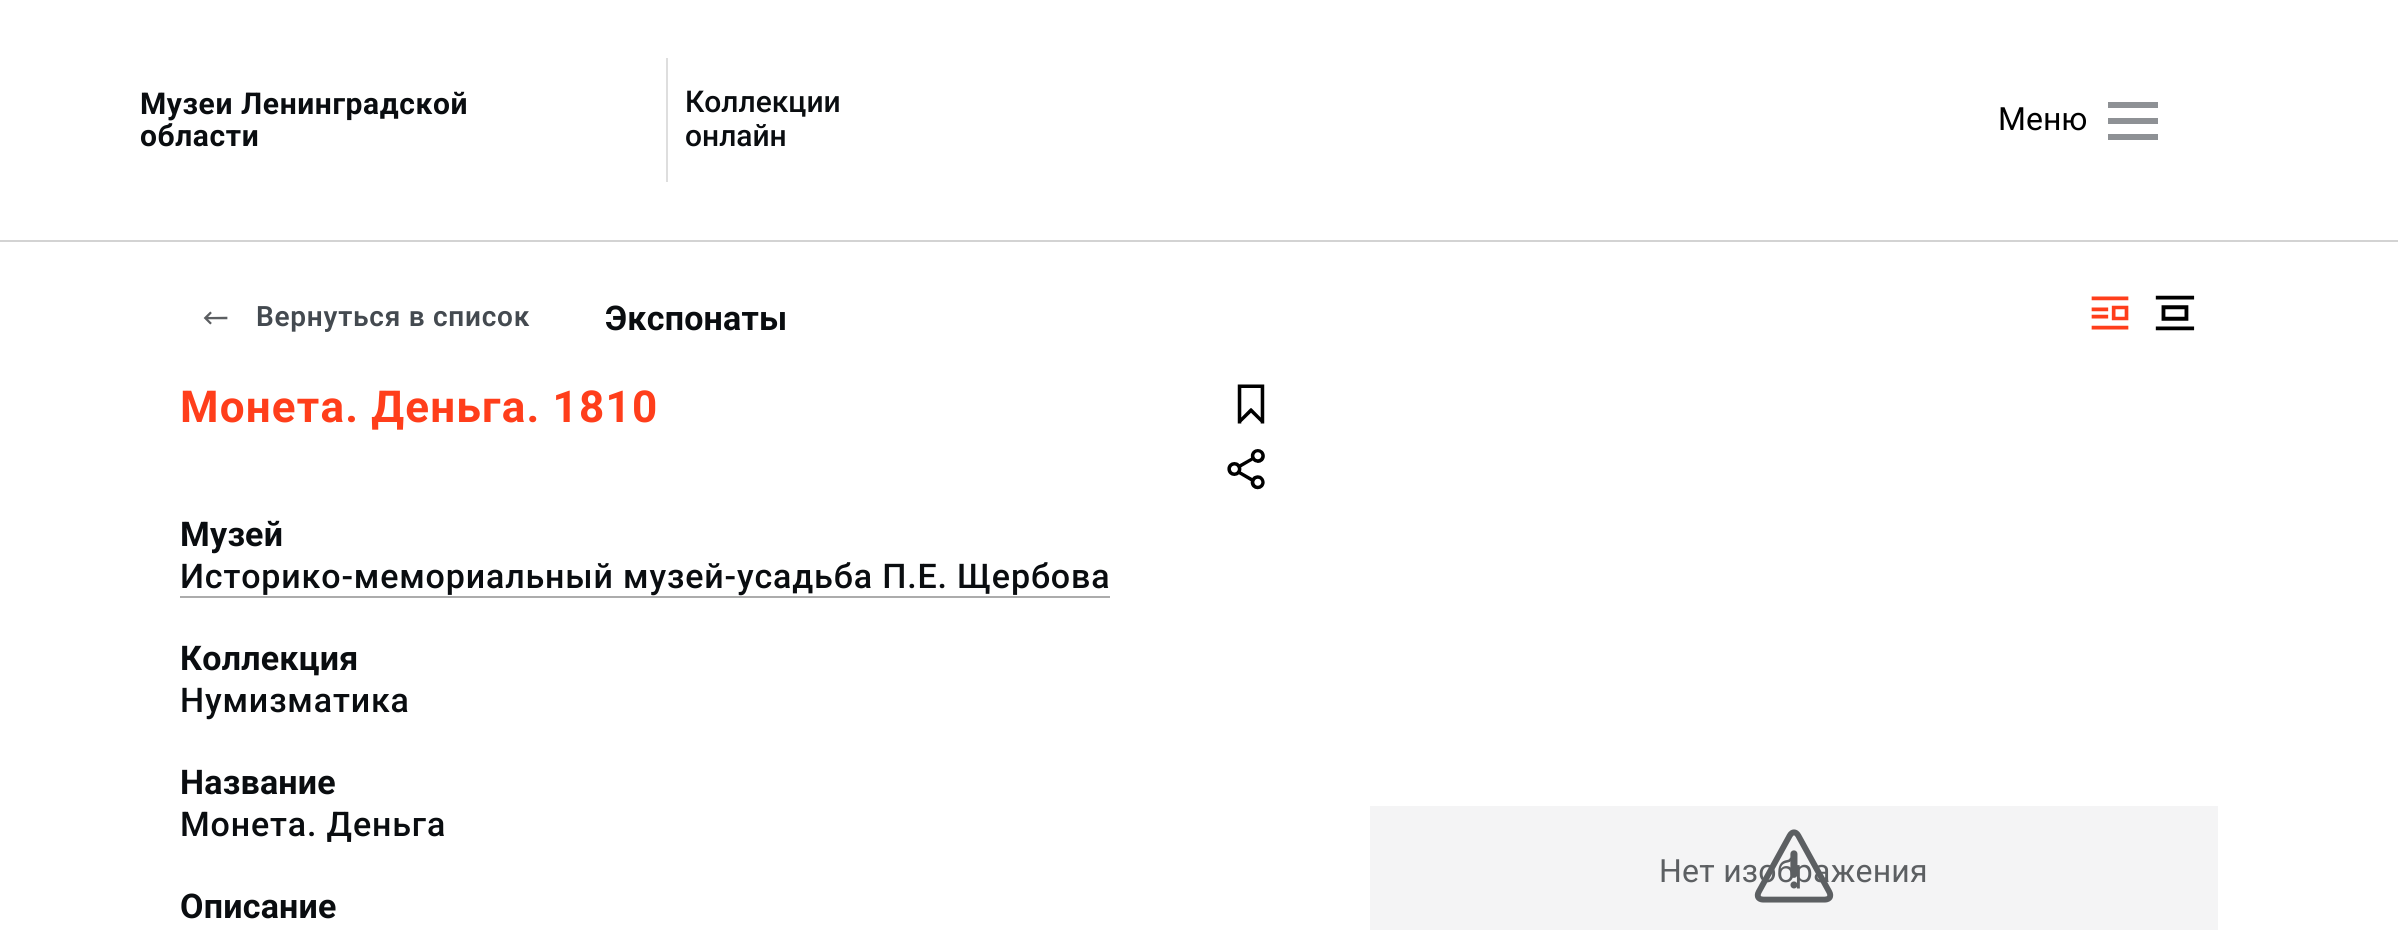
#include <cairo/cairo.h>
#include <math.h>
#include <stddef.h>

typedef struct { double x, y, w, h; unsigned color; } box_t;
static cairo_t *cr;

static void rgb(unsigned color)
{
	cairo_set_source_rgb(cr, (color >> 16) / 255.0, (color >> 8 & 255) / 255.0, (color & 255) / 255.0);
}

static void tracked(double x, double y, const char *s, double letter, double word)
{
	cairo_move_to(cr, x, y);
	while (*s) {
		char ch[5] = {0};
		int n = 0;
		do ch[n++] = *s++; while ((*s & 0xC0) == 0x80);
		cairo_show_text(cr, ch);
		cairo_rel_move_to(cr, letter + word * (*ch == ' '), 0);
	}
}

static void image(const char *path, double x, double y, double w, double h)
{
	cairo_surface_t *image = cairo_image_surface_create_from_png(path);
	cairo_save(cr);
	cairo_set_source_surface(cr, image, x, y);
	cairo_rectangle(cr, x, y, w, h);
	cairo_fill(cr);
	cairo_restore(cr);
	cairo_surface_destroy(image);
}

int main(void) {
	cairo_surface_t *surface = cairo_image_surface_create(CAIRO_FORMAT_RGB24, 2398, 930);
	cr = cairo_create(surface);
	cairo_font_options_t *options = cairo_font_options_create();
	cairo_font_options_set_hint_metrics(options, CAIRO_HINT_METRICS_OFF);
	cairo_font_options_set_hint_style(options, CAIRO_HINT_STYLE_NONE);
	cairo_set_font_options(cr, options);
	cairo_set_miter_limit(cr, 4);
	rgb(0xffffff);
	cairo_paint(cr);
	{
		static const box_t items[] = {
			{0, 240, 2398, 2, 0xd3d3d3},
			{666, 58, 2, 124, 0xdedede},
			{2108, 102, 50, 6, 0x8e9195},
			{2108, 118, 50, 6, 0x8e9195},
			{2108, 134, 50, 6, 0x8e9195},
		};
		for (size_t i = 0; i < sizeof items / sizeof *items; i++) {
			rgb(items[i].color);
			cairo_rectangle(cr, items[i].x, items[i].y, items[i].w, items[i].h);
			cairo_fill(cr);
		}
	}
	image("img/1.png", 203, 311, 25, 14);
	image("img/2.png", 2091, 296, 38, 34);
	image("img/3.png", 2155, 295, 40, 36);
	image("img/4.png", 1237, 384, 28, 40);
	image("img/5.png", 1227, 449, 38, 41);
	rgb(0xacacac);
	cairo_rectangle(cr, 180, 596, 930, 2);
	cairo_fill(cr);
	rgb(0xf4f4f5);
	cairo_rectangle(cr, 1370, 806, 848, 124);
	cairo_fill(cr);
	cairo_select_font_face(cr, "Roboto", CAIRO_FONT_SLANT_NORMAL, CAIRO_FONT_WEIGHT_BOLD);
	cairo_set_font_size(cr, 30);
	rgb(0x0a0d10);
	tracked(140, 114, "Музеи Ленинградской", 0.6, 0);
	tracked(140, 146, "области", 0.6, 0);
	cairo_select_font_face(cr, "Roboto Medium", CAIRO_FONT_SLANT_NORMAL, CAIRO_FONT_WEIGHT_NORMAL);
	cairo_move_to(cr, 685, 112);
	cairo_show_text(cr, "Коллекции");
	cairo_move_to(cr, 685, 146);
	cairo_show_text(cr, "онлайн");
	cairo_select_font_face(cr, "Roboto", CAIRO_FONT_SLANT_NORMAL, CAIRO_FONT_WEIGHT_NORMAL);
	cairo_set_font_size(cr, 32);
	rgb(0x000000);
	cairo_move_to(cr, 1998, 130);
	cairo_show_text(cr, "Меню");
	cairo_select_font_face(cr, "Roboto SemiBold", CAIRO_FONT_SLANT_NORMAL, CAIRO_FONT_WEIGHT_NORMAL);
	cairo_set_font_size(cr, 28);
	rgb(0x444a50);
	tracked(256, 326, "Вернуться в список", 0.75, 0);
	cairo_select_font_face(cr, "Roboto", CAIRO_FONT_SLANT_NORMAL, CAIRO_FONT_WEIGHT_BOLD);
	cairo_set_font_size(cr, 34);
	rgb(0x0a0d10);
	tracked(605, 330, "Экспонаты", 0.25, 0);
	cairo_set_font_size(cr, 44);
	rgb(0xff3e1b);
	tracked(180, 422, "Монета. Деньга. 1810", 1.2, 0);
	cairo_set_font_size(cr, 34);
	rgb(0x0a0d10);
	tracked(180, 546, "Музей", 0.25, 0);
	cairo_select_font_face(cr, "Roboto Medium", CAIRO_FONT_SLANT_NORMAL, CAIRO_FONT_WEIGHT_NORMAL);
	tracked(180, 588, "Историко-мемориальный музей-усадьба П.Е. Щербова", 0.85, 0);
	cairo_select_font_face(cr, "Roboto", CAIRO_FONT_SLANT_NORMAL, CAIRO_FONT_WEIGHT_BOLD);
	tracked(180, 670, "Коллекция", 0.25, 0);
	cairo_select_font_face(cr, "Roboto Medium", CAIRO_FONT_SLANT_NORMAL, CAIRO_FONT_WEIGHT_NORMAL);
	tracked(180, 712, "Нумизматика", 0.85, 0);
	cairo_select_font_face(cr, "Roboto", CAIRO_FONT_SLANT_NORMAL, CAIRO_FONT_WEIGHT_BOLD);
	tracked(180, 794, "Название", 0.25, 0);
	cairo_select_font_face(cr, "Roboto Medium", CAIRO_FONT_SLANT_NORMAL, CAIRO_FONT_WEIGHT_NORMAL);
	tracked(180, 836, "Монета. Деньга", 0.85, 0);
	cairo_select_font_face(cr, "Roboto", CAIRO_FONT_SLANT_NORMAL, CAIRO_FONT_WEIGHT_BOLD);
	tracked(180, 918, "Описание", 0.25, 0);
	cairo_select_font_face(cr, "Roboto", CAIRO_FONT_SLANT_NORMAL, CAIRO_FONT_WEIGHT_NORMAL);
	cairo_set_font_size(cr, 32);
	rgb(0x5c5f62);
	tracked(1659, 882, "Нет изображения", 0.25, 0);
	image("img/6.png", 1754, 829, 80, 74);
	cairo_surface_write_to_png(surface, "page.png");
	cairo_font_options_destroy(options);
	cairo_destroy(cr);
	cairo_surface_destroy(surface);
	return 0;
}
